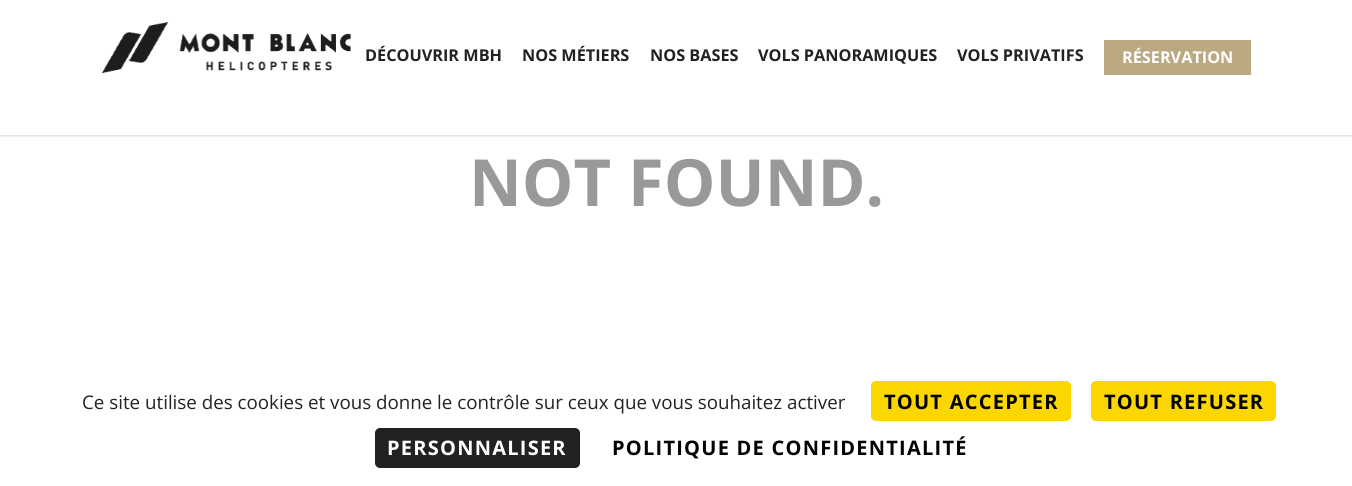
#include <cairo/cairo.h>
#include <math.h>
#include <stddef.h>

typedef struct { double x, y; const char *s; } line_t;
static cairo_t *cr;

static void rgb(unsigned color)
{
	cairo_set_source_rgb(cr, (color >> 16) / 255.0, (color >> 8 & 255) / 255.0, (color & 255) / 255.0);
}

static void tracked(double x, double y, const char *s, double letter, double word)
{
	cairo_move_to(cr, x, y);
	while (*s) {
		char ch[5] = {0};
		int n = 0;
		do ch[n++] = *s++; while ((*s & 0xC0) == 0x80);
		cairo_show_text(cr, ch);
		cairo_rel_move_to(cr, letter + word * (*ch == ' '), 0);
	}
}

static void rrect(double x, double y, double w, double h, double r)
{
	cairo_new_sub_path(cr);
	cairo_arc(cr, x + w - r, y + h - r, r, 0, M_PI / 2);
	cairo_arc(cr, x + r, y + h - r, r, M_PI / 2, M_PI);
	cairo_arc(cr, x + r, y + r, r, M_PI, 1.5 * M_PI);
	cairo_arc(cr, x + w - r, y + r, r, 1.5 * M_PI, 2 * M_PI);
	cairo_close_path(cr);
}

static void soft_shadow(double x, double y, double w, double h, double r, double blur, double alpha)
{
	cairo_push_group_with_content(cr, CAIRO_CONTENT_ALPHA);
	cairo_set_operator(cr, CAIRO_OPERATOR_SOURCE);
	for (int i = 15; i >= -15 && fmin(w, h) + blur * i / 3 > 0; i -= 2) {
		double e = blur * i / 6;
		cairo_set_source_rgba(cr, 0, 0, 0, alpha * erfc((i - 1) / 8.5) / 2);
		rrect(x - e, y - e, w + 2 * e, h + 2 * e, fmax(0, fmin(r + e + blur * .6, fmin(w, h) / 2 + e)));
		cairo_fill(cr);
	}
	cairo_pattern_t *soft = cairo_pop_group(cr);
	cairo_mask(cr, soft);
	cairo_pattern_destroy(soft);
}

static void image(const char *path, double x, double y, double w, double h)
{
	cairo_surface_t *image = cairo_image_surface_create_from_png(path);
	cairo_save(cr);
	cairo_set_source_surface(cr, image, x, y);
	cairo_rectangle(cr, x, y, w, h);
	cairo_fill(cr);
	cairo_restore(cr);
	cairo_surface_destroy(image);
}

int main(void) {
	cairo_surface_t *surface = cairo_image_surface_create(CAIRO_FORMAT_RGB24, 1352, 486);
	cr = cairo_create(surface);
	cairo_font_options_t *options = cairo_font_options_create();
	cairo_font_options_set_hint_metrics(options, CAIRO_HINT_METRICS_OFF);
	cairo_font_options_set_hint_style(options, CAIRO_HINT_STYLE_NONE);
	cairo_set_font_options(cr, options);
	cairo_set_miter_limit(cr, 4);
	rgb(0xffffff);
	cairo_paint(cr);
	rgb(0x000000);
	soft_shadow(-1, -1, 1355, 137, 0, 1, 0.16);
	rgb(0xffffff);
	cairo_rectangle(cr, 0, 0, 1352, 135);
	cairo_fill(cr);
	image("img/1.png", 102, 22, 249, 51);
	rgb(0xbaa981);
	cairo_rectangle(cr, 1104, 40, 147, 35);
	cairo_fill(cr);
	rgb(0xfbd600);
	rrect(871, 381, 200, 40, 5);
	cairo_fill(cr);
	rrect(1091, 381, 185, 40, 5);
	cairo_fill(cr);
	rgb(0x222222);
	rrect(375, 428, 205, 40, 5);
	cairo_fill(cr);
	cairo_select_font_face(cr, "Open Sans", CAIRO_FONT_SLANT_NORMAL, CAIRO_FONT_WEIGHT_BOLD);
	cairo_set_font_size(cr, 16.25);
	{
		static const line_t items[] = {
			{365, 61, "DÉCOUVRIR MBH"},
			{522, 61, "NOS MÉTIERS"},
			{650, 61, "NOS BASES"},
			{758, 61, "VOLS PANORAMIQUES"},
			{957, 61, "VOLS PRIVATIFS"},
		};
		for (size_t i = 0; i < sizeof items / sizeof *items; i++) {
			cairo_move_to(cr, items[i].x, items[i].y);
			cairo_show_text(cr, items[i].s);
		}
	}
	rgb(0xffffff);
	cairo_move_to(cr, 1122, 63);
	cairo_show_text(cr, "RÉSERVATION");
	cairo_set_font_size(cr, 65);
	rgb(0x999999);
	cairo_move_to(cr, 469, 206);
	cairo_show_text(cr, "NOT FOUND.");
	cairo_select_font_face(cr, "Open Sans", CAIRO_FONT_SLANT_NORMAL, CAIRO_FONT_WEIGHT_NORMAL);
	cairo_set_font_size(cr, 18.75);
	rgb(0x222222);
	cairo_move_to(cr, 82, 409);
	cairo_show_text(cr, "Ce site utilise des cookies et vous donne le contrôle sur ceux que vous souhaitez activer");
	cairo_select_font_face(cr, "Open Sans", CAIRO_FONT_SLANT_NORMAL, CAIRO_FONT_WEIGHT_BOLD);
	cairo_set_font_size(cr, 20);
	rgb(0x000000);
	tracked(884, 409, "TOUT ACCEPTER", 1.25, 0);
	tracked(1104, 409, "TOUT REFUSER", 1.25, 0);
	rgb(0xffffff);
	tracked(387, 455, "PERSONNALISER", 1.25, 0);
	rgb(0x000000);
	tracked(612, 455, "POLITIQUE DE CONFIDENTIALITÉ", 1.25, 0);
	cairo_surface_write_to_png(surface, "page.png");
	cairo_font_options_destroy(options);
	cairo_destroy(cr);
	cairo_surface_destroy(surface);
	return 0;
}
